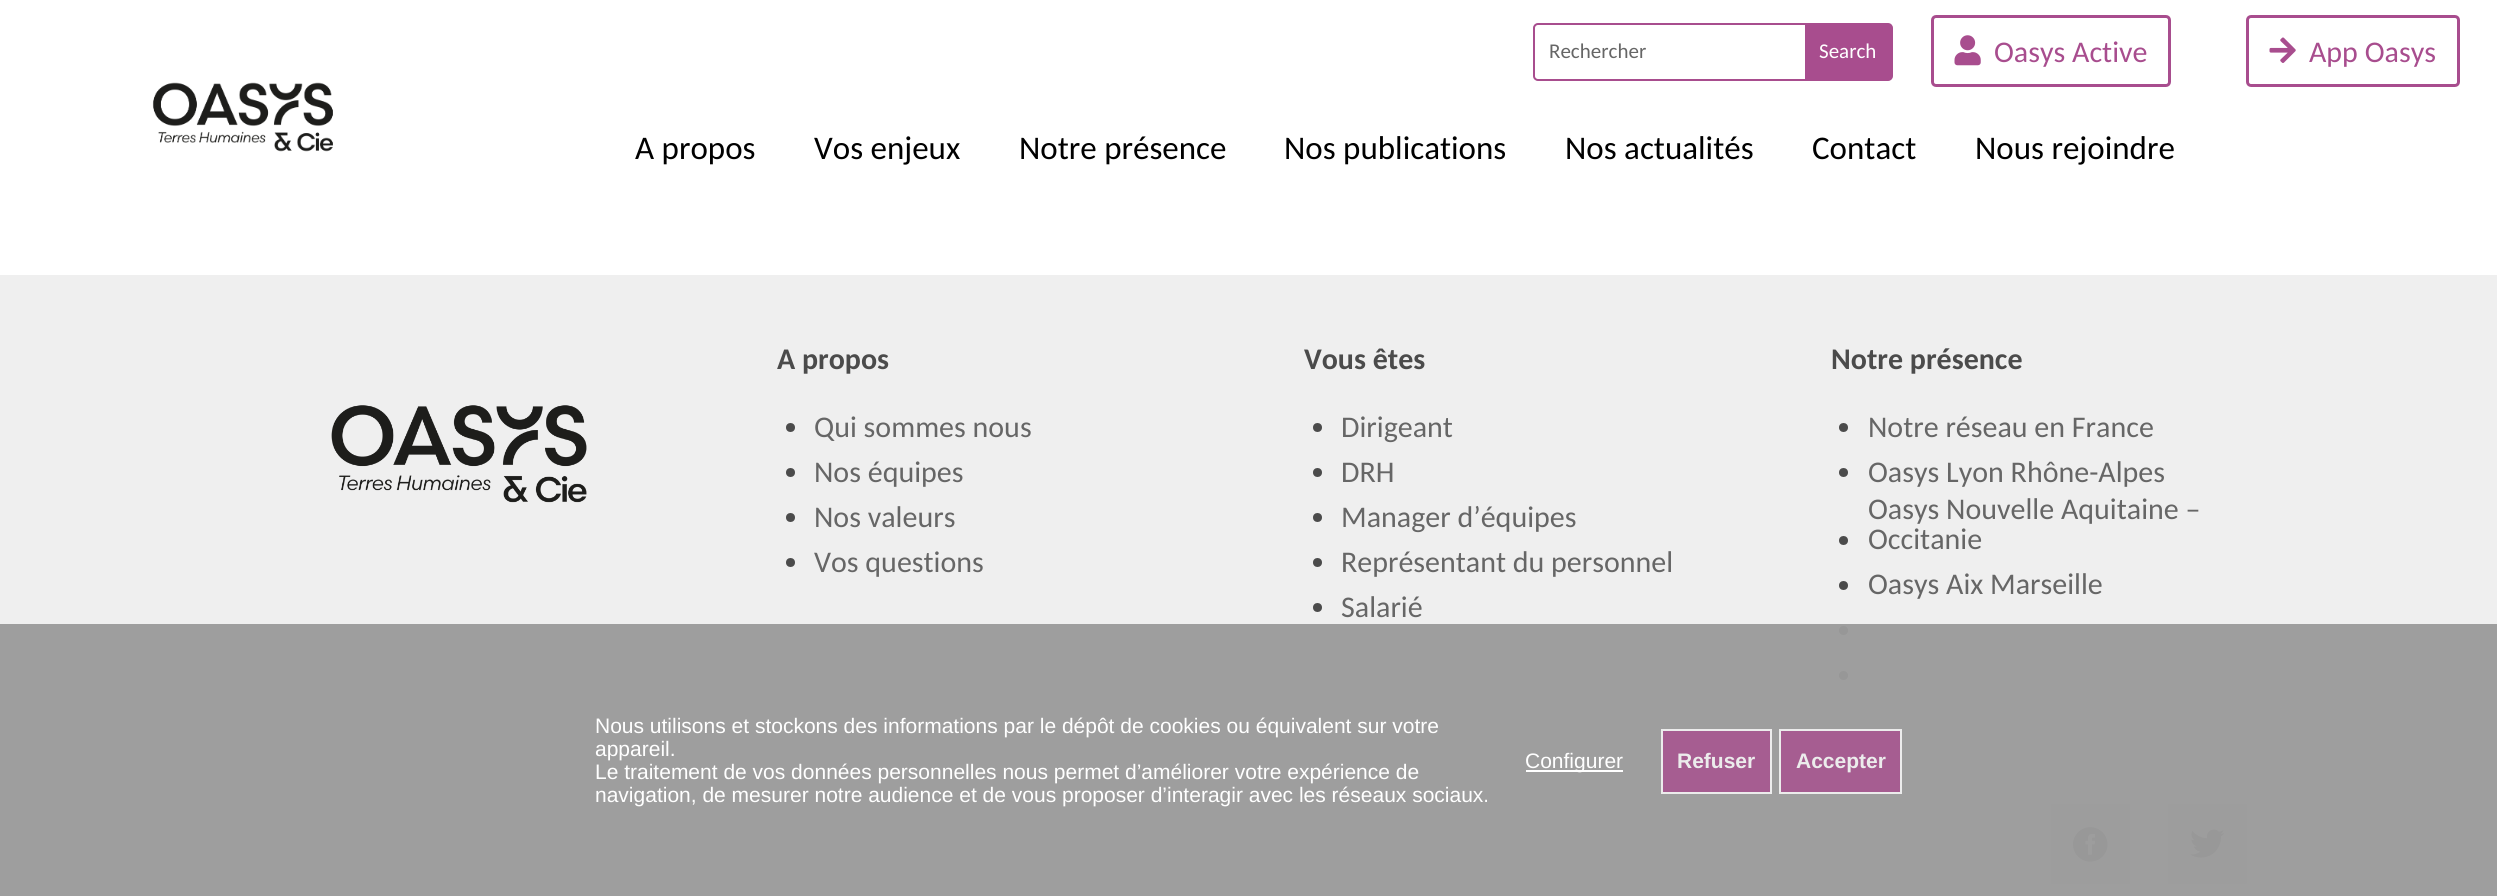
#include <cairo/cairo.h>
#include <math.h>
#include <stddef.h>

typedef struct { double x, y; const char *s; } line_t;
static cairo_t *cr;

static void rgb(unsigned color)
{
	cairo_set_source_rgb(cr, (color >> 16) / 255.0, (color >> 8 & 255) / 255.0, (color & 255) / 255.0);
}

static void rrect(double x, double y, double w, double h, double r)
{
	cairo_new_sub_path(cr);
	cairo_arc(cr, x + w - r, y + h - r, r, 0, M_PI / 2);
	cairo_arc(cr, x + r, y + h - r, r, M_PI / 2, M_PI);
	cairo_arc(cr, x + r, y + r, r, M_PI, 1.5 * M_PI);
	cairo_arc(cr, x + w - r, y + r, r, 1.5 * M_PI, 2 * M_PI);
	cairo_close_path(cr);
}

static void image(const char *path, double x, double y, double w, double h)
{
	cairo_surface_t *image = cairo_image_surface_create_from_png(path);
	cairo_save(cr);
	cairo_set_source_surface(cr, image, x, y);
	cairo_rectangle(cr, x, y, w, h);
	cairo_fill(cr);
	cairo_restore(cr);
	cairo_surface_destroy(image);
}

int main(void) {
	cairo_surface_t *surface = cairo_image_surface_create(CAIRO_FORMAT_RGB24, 2497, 896);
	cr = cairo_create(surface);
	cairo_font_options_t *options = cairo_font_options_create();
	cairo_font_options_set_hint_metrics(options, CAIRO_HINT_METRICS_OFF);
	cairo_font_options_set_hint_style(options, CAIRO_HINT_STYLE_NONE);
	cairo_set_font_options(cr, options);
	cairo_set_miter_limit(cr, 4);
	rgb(0xefefef);
	cairo_paint(cr);
	rgb(0xffffff);
	cairo_rectangle(cr, 0, 0, 2497, 275);
	cairo_fill(cr);
	image("img/1.png", 152, 82, 181, 70);
	rrect(1534, 24, 358, 56, 4);
	rgb(0xa84d8e);
	cairo_stroke(cr);
	cairo_new_path(cr);
	cairo_move_to(cr, 1805, 24);
	cairo_line_to(cr, 1889, 24);
	cairo_curve_to(cr, 1890.5, 24, 1892, 25.5, 1892, 27);
	cairo_line_to(cr, 1892, 77);
	cairo_curve_to(cr, 1892, 78.5, 1890.5, 80, 1889, 80);
	cairo_line_to(cr, 1805, 80);
	cairo_close_path(cr);
	cairo_fill(cr);
	rrect(1932.5, 16.5, 237, 69, 3.5);
	cairo_set_line_width(cr, 3);
	cairo_stroke(cr);
	image("img/2.png", 1954, 35, 27, 31);
	rrect(2247.5, 16.5, 211, 69, 3.5);
	cairo_stroke(cr);
	image("img/3.png", 2269, 37, 27, 26);
	image("img/4.png", 331, 405, 256, 98);
	rgb(0x4b4b4b);
	cairo_arc(cr, 790.5, 427.5, 4.5, 0, 2 * M_PI);
	cairo_fill(cr);
	cairo_arc(cr, 790.5, 472.5, 4.5, 0, 2 * M_PI);
	cairo_fill(cr);
	cairo_arc(cr, 790.5, 517.5, 4.5, 0, 2 * M_PI);
	cairo_fill(cr);
	cairo_arc(cr, 790.5, 562.5, 4.5, 0, 2 * M_PI);
	cairo_fill(cr);
	cairo_arc(cr, 1317.5, 427.5, 4.5, 0, 2 * M_PI);
	cairo_fill(cr);
	cairo_arc(cr, 1317.5, 472.5, 4.5, 0, 2 * M_PI);
	cairo_fill(cr);
	cairo_arc(cr, 1317.5, 517.5, 4.5, 0, 2 * M_PI);
	cairo_fill(cr);
	cairo_arc(cr, 1317.5, 562.5, 4.5, 0, 2 * M_PI);
	cairo_fill(cr);
	cairo_arc(cr, 1317.5, 607.5, 4.5, 0, 2 * M_PI);
	cairo_fill(cr);
	cairo_arc(cr, 1843.5, 427.5, 4.5, 0, 2 * M_PI);
	cairo_fill(cr);
	cairo_arc(cr, 1843.5, 472.5, 4.5, 0, 2 * M_PI);
	cairo_fill(cr);
	cairo_arc(cr, 1843.5, 540.5, 4.5, 0, 2 * M_PI);
	cairo_fill(cr);
	cairo_arc(cr, 1843.5, 585.5, 4.5, 0, 2 * M_PI);
	cairo_fill(cr);
	cairo_arc(cr, 1843.5, 630.5, 4.5, 0, 2 * M_PI);
	cairo_fill(cr);
	cairo_arc(cr, 1843.5, 675.5, 4.5, 0, 2 * M_PI);
	cairo_fill(cr);
	rgb(0xdfdfdf);
	cairo_rectangle(cr, 2051, 804, 79, 80);
	cairo_fill(cr);
	image("img/5.png", 2073, 827, 35, 35);
	cairo_rectangle(cr, 2168, 804, 79, 80);
	cairo_fill(cr);
	image("img/6.png", 2190, 829, 35, 29);
	cairo_set_source_rgba(cr, 0.608, 0.608, 0.608, 0.95);
	cairo_rectangle(cr, 0, 624, 2497, 272);
	cairo_fill(cr);
	rgb(0xffffff);
	cairo_rectangle(cr, 1526, 770, 97, 2);
	cairo_fill(cr);
	rgb(0xa65d91);
	cairo_rectangle(cr, 1662, 730, 109, 63);
	cairo_fill_preserve(cr);
	rgb(0xececec);
	cairo_set_line_width(cr, 2);
	cairo_stroke(cr);
	rgb(0xa65d91);
	cairo_rectangle(cr, 1780, 730, 121, 63);
	cairo_fill_preserve(cr);
	rgb(0xececec);
	cairo_stroke(cr);
	cairo_select_font_face(cr, "Carlito", CAIRO_FONT_SLANT_NORMAL, CAIRO_FONT_WEIGHT_NORMAL);
	cairo_set_font_size(cr, 21);
	rgb(0x666666);
	cairo_move_to(cr, 1549, 58);
	cairo_show_text(cr, "Rechercher");
	rgb(0xffffff);
	cairo_move_to(cr, 1819, 58);
	cairo_show_text(cr, "Search");
	cairo_set_font_size(cr, 30);
	rgb(0xa84d8e);
	cairo_move_to(cr, 1994, 62);
	cairo_show_text(cr, "Oasys Active");
	cairo_move_to(cr, 2309, 62);
	cairo_show_text(cr, "App Oasys");
	cairo_set_font_size(cr, 33);
	rgb(0x000000);
	{
		static const line_t items[] = {
			{635, 159, "A propos"},
			{814, 159, "Vos enjeux"},
			{1019, 159, "Notre présence"},
			{1284, 159, "Nos publications"},
			{1565, 159, "Nos actualités"},
			{1812, 159, "Contact"},
			{1975, 159, "Nous rejoindre"},
		};
		for (size_t i = 0; i < sizeof items / sizeof *items; i++) {
			cairo_move_to(cr, items[i].x, items[i].y);
			cairo_show_text(cr, items[i].s);
		}
	}
	cairo_select_font_face(cr, "Carlito", CAIRO_FONT_SLANT_NORMAL, CAIRO_FONT_WEIGHT_BOLD);
	cairo_set_font_size(cr, 30);
	rgb(0x4b4b4b);
	cairo_move_to(cr, 777, 369);
	cairo_show_text(cr, "A propos");
	cairo_select_font_face(cr, "Carlito", CAIRO_FONT_SLANT_NORMAL, CAIRO_FONT_WEIGHT_NORMAL);
	rgb(0x666666);
	{
		static const line_t items[] = {
			{814, 437, "Qui sommes nous"},
			{814, 482, "Nos équipes"},
			{814, 527, "Nos valeurs"},
			{814, 572, "Vos questions"},
		};
		for (size_t i = 0; i < sizeof items / sizeof *items; i++) {
			cairo_move_to(cr, items[i].x, items[i].y);
			cairo_show_text(cr, items[i].s);
		}
	}
	cairo_select_font_face(cr, "Carlito", CAIRO_FONT_SLANT_NORMAL, CAIRO_FONT_WEIGHT_BOLD);
	rgb(0x4b4b4b);
	cairo_move_to(cr, 1304, 369);
	cairo_show_text(cr, "Vous êtes");
	cairo_select_font_face(cr, "Carlito", CAIRO_FONT_SLANT_NORMAL, CAIRO_FONT_WEIGHT_NORMAL);
	rgb(0x666666);
	{
		static const line_t items[] = {
			{1341, 437, "Dirigeant"},
			{1341, 482, "DRH"},
			{1341, 527, "Manager d’équipes"},
			{1341, 572, "Représentant du personnel"},
			{1341, 617, "Salarié"},
		};
		for (size_t i = 0; i < sizeof items / sizeof *items; i++) {
			cairo_move_to(cr, items[i].x, items[i].y);
			cairo_show_text(cr, items[i].s);
		}
	}
	cairo_select_font_face(cr, "Carlito", CAIRO_FONT_SLANT_NORMAL, CAIRO_FONT_WEIGHT_BOLD);
	rgb(0x4b4b4b);
	cairo_move_to(cr, 1831, 369);
	cairo_show_text(cr, "Notre présence");
	cairo_select_font_face(cr, "Carlito", CAIRO_FONT_SLANT_NORMAL, CAIRO_FONT_WEIGHT_NORMAL);
	rgb(0x666666);
	{
		static const line_t items[] = {
			{1868, 437, "Notre réseau en France"},
			{1868, 482, "Oasys Lyon Rhône-Alpes"},
			{1868, 519, "Oasys Nouvelle Aquitaine –"},
			{1868, 549, "Occitanie"},
			{1868, 594, "Oasys Aix Marseille"},
		};
		for (size_t i = 0; i < sizeof items / sizeof *items; i++) {
			cairo_move_to(cr, items[i].x, items[i].y);
			cairo_show_text(cr, items[i].s);
		}
	}
	cairo_select_font_face(cr, "Liberation Sans", CAIRO_FONT_SLANT_NORMAL, CAIRO_FONT_WEIGHT_NORMAL);
	cairo_set_font_size(cr, 21);
	rgb(0xffffff);
	{
		static const line_t items[] = {
			{595, 733, "Nous utilisons et stockons des informations par le dépôt de cookies ou équivalent sur votre"},
			{595, 756, "appareil."},
			{595, 779, "Le traitement de vos données personnelles nous permet d’améliorer votre expérience de"},
			{595, 802, "navigation, de mesurer notre audience et de vous proposer d’interagir avec les réseaux sociaux."},
			{1525, 768, "Configurer"},
		};
		for (size_t i = 0; i < sizeof items / sizeof *items; i++) {
			cairo_move_to(cr, items[i].x, items[i].y);
			cairo_show_text(cr, items[i].s);
		}
	}
	cairo_select_font_face(cr, "Liberation Sans", CAIRO_FONT_SLANT_NORMAL, CAIRO_FONT_WEIGHT_BOLD);
	rgb(0xececec);
	cairo_move_to(cr, 1677, 768);
	cairo_show_text(cr, "Refuser");
	cairo_move_to(cr, 1796, 768);
	cairo_show_text(cr, "Accepter");
	cairo_surface_write_to_png(surface, "page.png");
	cairo_font_options_destroy(options);
	cairo_destroy(cr);
	cairo_surface_destroy(surface);
	return 0;
}
